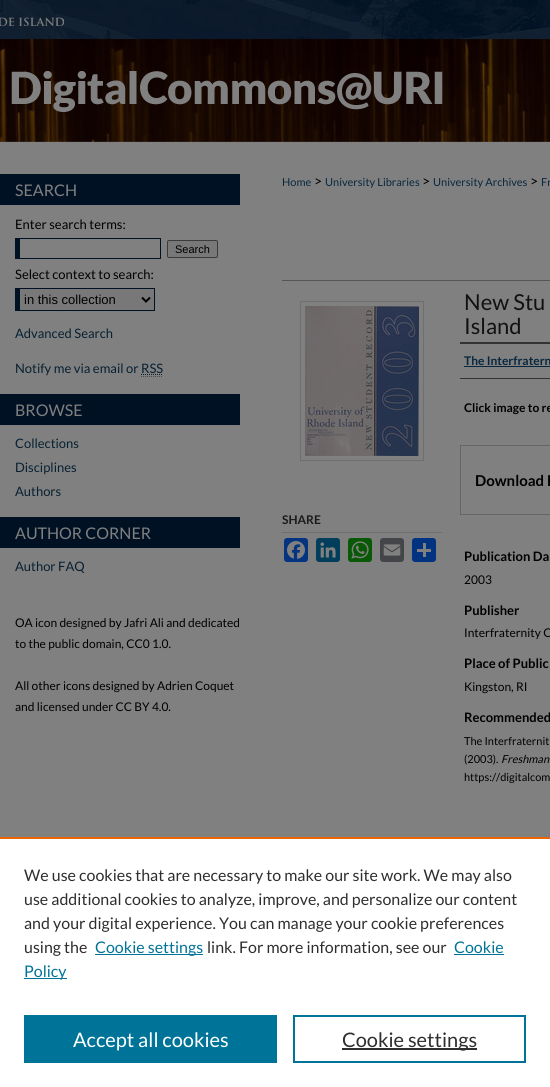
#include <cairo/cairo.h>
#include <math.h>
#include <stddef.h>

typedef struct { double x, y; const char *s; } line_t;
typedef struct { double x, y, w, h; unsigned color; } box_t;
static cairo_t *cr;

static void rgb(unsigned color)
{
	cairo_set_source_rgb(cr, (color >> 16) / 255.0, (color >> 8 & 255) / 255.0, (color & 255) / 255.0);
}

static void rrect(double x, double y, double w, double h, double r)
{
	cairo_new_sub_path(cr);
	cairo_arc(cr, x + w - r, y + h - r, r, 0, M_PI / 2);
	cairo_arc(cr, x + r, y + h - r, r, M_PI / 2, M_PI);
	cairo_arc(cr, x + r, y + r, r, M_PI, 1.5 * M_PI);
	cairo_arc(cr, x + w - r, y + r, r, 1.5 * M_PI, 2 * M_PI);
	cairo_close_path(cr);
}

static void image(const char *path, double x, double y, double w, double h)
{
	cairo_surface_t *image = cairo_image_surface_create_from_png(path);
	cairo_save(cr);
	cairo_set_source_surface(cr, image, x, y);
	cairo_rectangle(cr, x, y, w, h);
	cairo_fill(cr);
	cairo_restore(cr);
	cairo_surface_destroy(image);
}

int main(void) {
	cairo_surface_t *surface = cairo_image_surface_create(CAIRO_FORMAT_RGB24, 550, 1087);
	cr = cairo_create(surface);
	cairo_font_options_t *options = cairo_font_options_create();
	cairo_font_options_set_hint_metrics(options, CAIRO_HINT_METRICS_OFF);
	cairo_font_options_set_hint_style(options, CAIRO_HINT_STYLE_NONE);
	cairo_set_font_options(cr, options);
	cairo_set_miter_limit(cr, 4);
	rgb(0x808080);
	cairo_paint(cr);
	image("img/1.png", 0, 0, 550, 142);
	image("img/2.png", 11, 71, 432, 41);
	{
		static const box_t items[] = {
			{0, 174, 240, 31, 0x011124},
			{15, 238, 146, 1, 0x011124},
			{160, 238, 1, 21, 0x011124},
			{15, 258, 146, 1, 0x011124},
			{15, 238, 5, 21, 0x011124},
		};
		for (size_t i = 0; i < sizeof items / sizeof *items; i++) {
			rgb(items[i].color);
			cairo_rectangle(cr, items[i].x, items[i].y, items[i].w, items[i].h);
			cairo_fill(cr);
		}
	}
	rgb(0x787878);
	rrect(167.5, 240.5, 50, 17, 1.5);
	cairo_fill_preserve(cr);
	rgb(0x3b3b3b);
	cairo_set_line_width(cr, 1);
	cairo_stroke(cr);
	{
		static const box_t items[] = {
			{20, 289, 134, 21, 0x787878},
			{15, 288, 140, 1, 0x011124},
			{154, 288, 1, 23, 0x011124},
			{15, 310, 140, 1, 0x011124},
			{15, 288, 5, 23, 0x011124},
		};
		for (size_t i = 0; i < sizeof items / sizeof *items; i++) {
			rgb(items[i].color);
			cairo_rectangle(cr, items[i].x, items[i].y, items[i].w, items[i].h);
			cairo_fill(cr);
		}
	}
	cairo_new_path(cr);
	cairo_move_to(cr, 142, 297.5);
	cairo_line_to(cr, 146, 301.5);
	cairo_line_to(cr, 150, 297.5);
	rgb(0x000000);
	cairo_set_line_width(cr, 2);
	cairo_stroke(cr);
	cairo_new_path(cr);
	cairo_move_to(cr, 141, 374.5);
	cairo_line_to(cr, 163, 374.5);
	rgb(0x072031);
	cairo_set_line_width(cr, 1);
	cairo_set_dash(cr, (double[]){1, 1}, 2, 0);
	cairo_stroke(cr);
	cairo_new_path(cr);
	cairo_move_to(cr, 141, 376.5);
	cairo_line_to(cr, 163, 376.5);
	rgb(0x4d4d4d);
	cairo_stroke(cr);
	rgb(0x011124);
	cairo_rectangle(cr, 0, 394, 240, 31);
	cairo_fill(cr);
	cairo_rectangle(cr, 0, 517, 240, 31);
	cairo_fill(cr);
	cairo_rectangle(cr, 300.5, 301.5, 123, 159);
	rgb(0x6f6f6f);
	cairo_set_dash(cr, NULL, 0, 0);
	cairo_stroke(cr);
	image("img/3.png", 305, 306, 114, 150);
	cairo_rectangle(cr, 282, 532, 160, 1);
	cairo_fill(cr);
	rgb(0x043380);
	rrect(284, 538, 24, 24, 3);
	cairo_fill(cr);
	image("img/4.png", 287, 541, 18, 18);
	rgb(0x003e5b);
	rrect(316, 538, 24, 24, 3);
	cairo_fill(cr);
	image("img/5.png", 320, 542, 16, 16);
	rgb(0x095805);
	rrect(348, 538, 24, 24, 3);
	cairo_fill(cr);
	image("img/6.png", 351, 541, 18, 18);
	rgb(0x444548);
	rrect(380, 538, 24, 24, 3);
	cairo_fill(cr);
	image("img/7.png", 383, 544, 18, 12);
	rgb(0x013380);
	rrect(412, 538, 24, 24, 3);
	cairo_fill(cr);
	{
		static const box_t items[] = {
			{423, 543, 3, 14, 0x808080},
			{417, 549, 14, 3, 0x808080},
			{282, 280, 268, 1, 0x555555},
			{460, 342, 90, 2, 0x333333},
			{460, 378, 90, 1, 0x333333},
			{464, 366, 86, 1, 0x08273e},
		};
		for (size_t i = 0; i < sizeof items / sizeof *items; i++) {
			rgb(items[i].color);
			cairo_rectangle(cr, items[i].x, items[i].y, items[i].w, items[i].h);
			cairo_fill(cr);
		}
	}
	cairo_rectangle(cr, 460.5, 445.5, 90, 69);
	rgb(0x666666);
	cairo_stroke(cr);
	{
		static const box_t items[] = {
			{0, 839, 550, 248, 0xffffff},
			{0, 837, 550, 2, 0xeb6500},
			{95, 954, 108, 1, 0x007398},
			{454, 954, 50, 1, 0x007398},
			{24, 978, 43, 1, 0x007398},
			{24, 1015, 253, 48, 0x007398},
		};
		for (size_t i = 0; i < sizeof items / sizeof *items; i++) {
			rgb(items[i].color);
			cairo_rectangle(cr, items[i].x, items[i].y, items[i].w, items[i].h);
			cairo_fill(cr);
		}
	}
	cairo_rectangle(cr, 294, 1016, 231, 46);
	cairo_set_line_width(cr, 2);
	cairo_stroke(cr);
	rgb(0x2e2e2e);
	cairo_rectangle(cr, 342, 1048, 135, 2);
	cairo_fill(cr);
	cairo_select_font_face(cr, "Lato", CAIRO_FONT_SLANT_NORMAL, CAIRO_FONT_WEIGHT_NORMAL);
	cairo_set_font_size(cr, 16);
	rgb(0x808080);
	cairo_move_to(cr, 15, 196);
	cairo_show_text(cr, "SEARCH");
	cairo_set_font_size(cr, 13);
	rgb(0x000000);
	cairo_move_to(cr, 15, 229);
	cairo_show_text(cr, "Enter search terms:");
	cairo_select_font_face(cr, "Liberation Sans", CAIRO_FONT_SLANT_NORMAL, CAIRO_FONT_WEIGHT_NORMAL);
	cairo_set_font_size(cr, 11);
	cairo_move_to(cr, 175, 253);
	cairo_show_text(cr, "Search");
	cairo_select_font_face(cr, "Lato", CAIRO_FONT_SLANT_NORMAL, CAIRO_FONT_WEIGHT_NORMAL);
	cairo_set_font_size(cr, 13);
	cairo_move_to(cr, 15, 279);
	cairo_show_text(cr, "Select context to search:");
	cairo_select_font_face(cr, "Liberation Sans", CAIRO_FONT_SLANT_NORMAL, CAIRO_FONT_WEIGHT_NORMAL);
	cairo_move_to(cr, 24, 304);
	cairo_show_text(cr, "in this collection");
	cairo_select_font_face(cr, "Lato", CAIRO_FONT_SLANT_NORMAL, CAIRO_FONT_WEIGHT_NORMAL);
	rgb(0x072031);
	cairo_move_to(cr, 15, 338);
	cairo_show_text(cr, "Advanced Search");
	cairo_move_to(cr, 15, 373);
	cairo_show_text(cr, "Notify me via email or RSS");
	cairo_set_font_size(cr, 16);
	rgb(0x808080);
	cairo_move_to(cr, 15, 416);
	cairo_show_text(cr, "BROWSE");
	cairo_set_font_size(cr, 13);
	rgb(0x072031);
	{
		static const line_t items[] = {
			{15, 448, "Collections"},
			{15, 472, "Disciplines"},
			{15, 496, "Authors"},
		};
		for (size_t i = 0; i < sizeof items / sizeof *items; i++) {
			cairo_move_to(cr, items[i].x, items[i].y);
			cairo_show_text(cr, items[i].s);
		}
	}
	cairo_set_font_size(cr, 16);
	rgb(0x808080);
	cairo_move_to(cr, 15, 539);
	cairo_show_text(cr, "AUTHOR CORNER");
	cairo_set_font_size(cr, 13);
	rgb(0x072031);
	cairo_move_to(cr, 15, 571);
	cairo_show_text(cr, "Author FAQ");
	cairo_set_font_size(cr, 12);
	rgb(0x000000);
	{
		static const line_t items[] = {
			{15, 627, "OA icon designed by Jafri Ali and dedicated"},
			{15, 648, "to the public domain, CC0 1.0."},
			{15, 690, "All other icons designed by Adrien Coquet"},
			{15, 711, "and licensed under CC BY 4.0."},
		};
		for (size_t i = 0; i < sizeof items / sizeof *items; i++) {
			cairo_move_to(cr, items[i].x, items[i].y);
			cairo_show_text(cr, items[i].s);
		}
	}
	cairo_set_font_size(cr, 11);
	rgb(0x08273e);
	cairo_move_to(cr, 282, 186);
	cairo_show_text(cr, "Home");
	cairo_set_font_size(cr, 14);
	rgb(0x000000);
	cairo_move_to(cr, 314, 186);
	cairo_show_text(cr, ">");
	cairo_set_font_size(cr, 11);
	rgb(0x08273e);
	cairo_move_to(cr, 325, 186);
	cairo_show_text(cr, "University Libraries");
	cairo_set_font_size(cr, 14);
	rgb(0x000000);
	cairo_move_to(cr, 422, 186);
	cairo_show_text(cr, ">");
	cairo_set_font_size(cr, 11);
	rgb(0x08273e);
	cairo_move_to(cr, 433, 186);
	cairo_show_text(cr, "University Archives");
	cairo_set_font_size(cr, 14);
	rgb(0x000000);
	cairo_move_to(cr, 530, 186);
	cairo_show_text(cr, ">");
	cairo_set_font_size(cr, 11);
	rgb(0x08273e);
	cairo_move_to(cr, 541, 186);
	cairo_show_text(cr, "Fr");
	cairo_select_font_face(cr, "Lato", CAIRO_FONT_SLANT_NORMAL, CAIRO_FONT_WEIGHT_BOLD);
	cairo_set_font_size(cr, 12);
	rgb(0x1a1a1a);
	cairo_move_to(cr, 282, 524);
	cairo_show_text(cr, "SHARE");
	cairo_select_font_face(cr, "Lato", CAIRO_FONT_SLANT_NORMAL, CAIRO_FONT_WEIGHT_NORMAL);
	cairo_set_font_size(cr, 22);
	rgb(0x111111);
	cairo_move_to(cr, 464, 310);
	cairo_show_text(cr, "New Stu");
	cairo_move_to(cr, 464, 334);
	cairo_show_text(cr, "Island");
	cairo_select_font_face(cr, "Lato", CAIRO_FONT_SLANT_NORMAL, CAIRO_FONT_WEIGHT_BOLD);
	cairo_set_font_size(cr, 12);
	rgb(0x08273e);
	cairo_move_to(cr, 464, 365);
	cairo_show_text(cr, "The Interfratern");
	rgb(0x000000);
	cairo_move_to(cr, 464, 412);
	cairo_show_text(cr, "Click image to re");
	cairo_set_font_size(cr, 15);
	cairo_move_to(cr, 475, 486);
	cairo_show_text(cr, "Download F");
	cairo_set_font_size(cr, 13);
	cairo_move_to(cr, 464, 561);
	cairo_show_text(cr, "Publication Da");
	cairo_select_font_face(cr, "Lato", CAIRO_FONT_SLANT_NORMAL, CAIRO_FONT_WEIGHT_NORMAL);
	cairo_set_font_size(cr, 12);
	cairo_move_to(cr, 464, 584);
	cairo_show_text(cr, "2003");
	cairo_select_font_face(cr, "Lato", CAIRO_FONT_SLANT_NORMAL, CAIRO_FONT_WEIGHT_BOLD);
	cairo_set_font_size(cr, 13);
	cairo_move_to(cr, 464, 615);
	cairo_show_text(cr, "Publisher");
	cairo_select_font_face(cr, "Lato", CAIRO_FONT_SLANT_NORMAL, CAIRO_FONT_WEIGHT_NORMAL);
	cairo_set_font_size(cr, 12);
	cairo_move_to(cr, 464, 637);
	cairo_show_text(cr, "Interfraternity C");
	cairo_select_font_face(cr, "Lato", CAIRO_FONT_SLANT_NORMAL, CAIRO_FONT_WEIGHT_BOLD);
	cairo_set_font_size(cr, 13);
	cairo_move_to(cr, 464, 668);
	cairo_show_text(cr, "Place of Public");
	cairo_select_font_face(cr, "Lato", CAIRO_FONT_SLANT_NORMAL, CAIRO_FONT_WEIGHT_NORMAL);
	cairo_set_font_size(cr, 12);
	cairo_move_to(cr, 464, 691);
	cairo_show_text(cr, "Kingston, RI");
	cairo_select_font_face(cr, "Lato", CAIRO_FONT_SLANT_NORMAL, CAIRO_FONT_WEIGHT_BOLD);
	cairo_set_font_size(cr, 13);
	cairo_move_to(cr, 464, 722);
	cairo_show_text(cr, "Recommended");
	cairo_select_font_face(cr, "Lato", CAIRO_FONT_SLANT_NORMAL, CAIRO_FONT_WEIGHT_NORMAL);
	cairo_set_font_size(cr, 11);
	cairo_move_to(cr, 464, 745);
	cairo_show_text(cr, "The Interfraternit");
	cairo_move_to(cr, 464, 763);
	cairo_show_text(cr, "(2003).");
	cairo_select_font_face(cr, "Lato", CAIRO_FONT_SLANT_ITALIC, CAIRO_FONT_WEIGHT_NORMAL);
	cairo_move_to(cr, 501, 763);
	cairo_show_text(cr, "Freshman");
	cairo_select_font_face(cr, "Lato", CAIRO_FONT_SLANT_NORMAL, CAIRO_FONT_WEIGHT_NORMAL);
	cairo_move_to(cr, 464, 781);
	cairo_show_text(cr, "https://digitalcom");
	cairo_set_font_size(cr, 16);
	rgb(0x2e2e2e);
	{
		static const line_t items[] = {
			{24, 881, "We use cookies that are necessary to make our site work. We may also"},
			{24, 905, "use additional cookies to analyze, improve, and personalize our content"},
			{24, 929, "and your digital experience. You can manage your cookie preferences"},
			{24, 953, "using the"},
		};
		for (size_t i = 0; i < sizeof items / sizeof *items; i++) {
			cairo_move_to(cr, items[i].x, items[i].y);
			cairo_show_text(cr, items[i].s);
		}
	}
	rgb(0x007398);
	cairo_move_to(cr, 95, 953);
	cairo_show_text(cr, "Cookie settings");
	rgb(0x2e2e2e);
	cairo_move_to(cr, 207, 953);
	cairo_show_text(cr, "link. For more information, see our");
	rgb(0x007398);
	cairo_move_to(cr, 454, 953);
	cairo_show_text(cr, "Cookie");
	cairo_move_to(cr, 24, 977);
	cairo_show_text(cr, "Policy");
	cairo_set_font_size(cr, 20);
	rgb(0xffffff);
	cairo_move_to(cr, 73, 1047);
	cairo_show_text(cr, "Accept all cookies");
	rgb(0x2e2e2e);
	cairo_move_to(cr, 342, 1047);
	cairo_show_text(cr, "Cookie settings");
	cairo_surface_write_to_png(surface, "page.png");
	cairo_font_options_destroy(options);
	cairo_destroy(cr);
	cairo_surface_destroy(surface);
	return 0;
}
